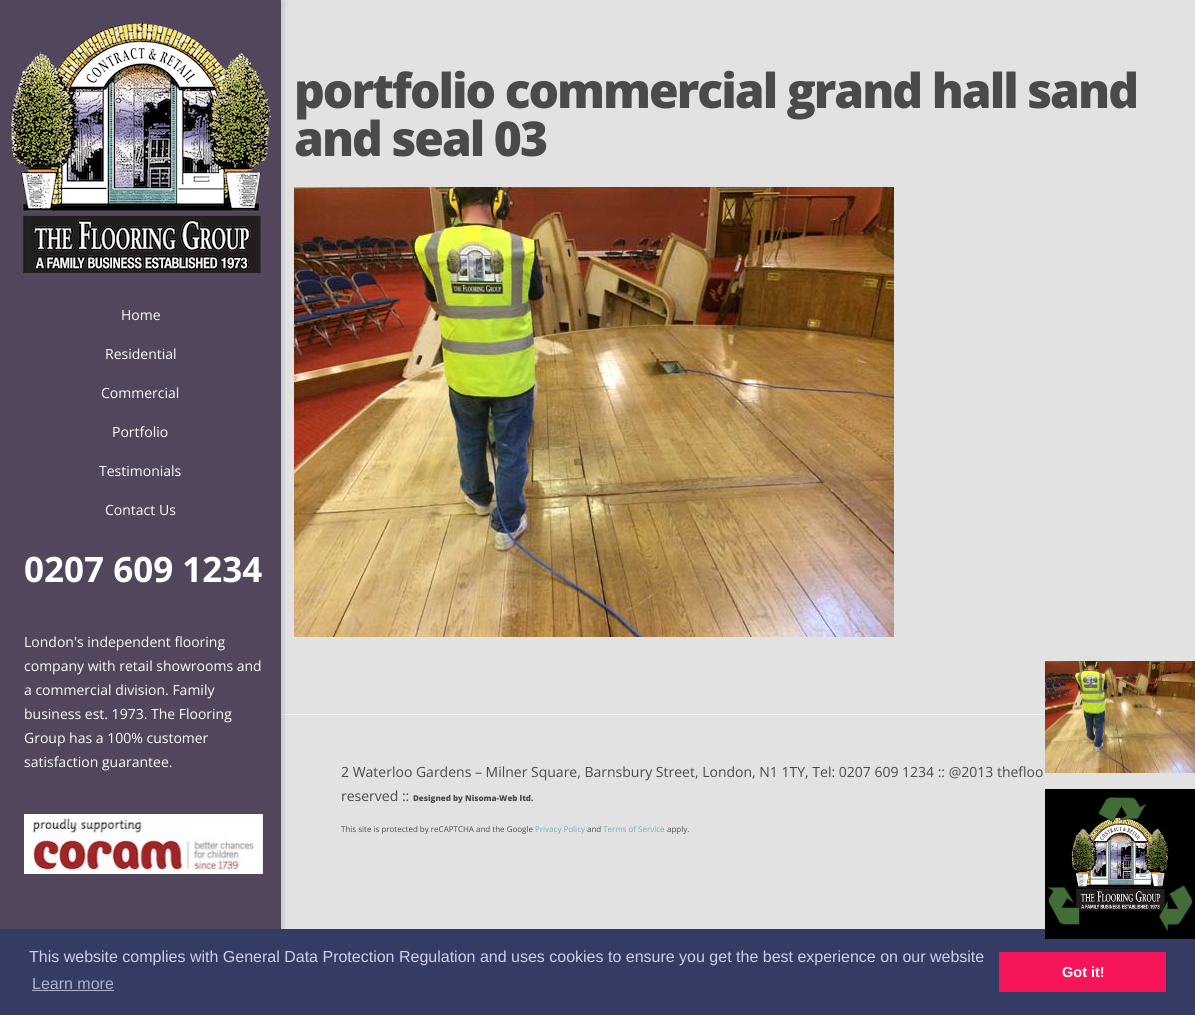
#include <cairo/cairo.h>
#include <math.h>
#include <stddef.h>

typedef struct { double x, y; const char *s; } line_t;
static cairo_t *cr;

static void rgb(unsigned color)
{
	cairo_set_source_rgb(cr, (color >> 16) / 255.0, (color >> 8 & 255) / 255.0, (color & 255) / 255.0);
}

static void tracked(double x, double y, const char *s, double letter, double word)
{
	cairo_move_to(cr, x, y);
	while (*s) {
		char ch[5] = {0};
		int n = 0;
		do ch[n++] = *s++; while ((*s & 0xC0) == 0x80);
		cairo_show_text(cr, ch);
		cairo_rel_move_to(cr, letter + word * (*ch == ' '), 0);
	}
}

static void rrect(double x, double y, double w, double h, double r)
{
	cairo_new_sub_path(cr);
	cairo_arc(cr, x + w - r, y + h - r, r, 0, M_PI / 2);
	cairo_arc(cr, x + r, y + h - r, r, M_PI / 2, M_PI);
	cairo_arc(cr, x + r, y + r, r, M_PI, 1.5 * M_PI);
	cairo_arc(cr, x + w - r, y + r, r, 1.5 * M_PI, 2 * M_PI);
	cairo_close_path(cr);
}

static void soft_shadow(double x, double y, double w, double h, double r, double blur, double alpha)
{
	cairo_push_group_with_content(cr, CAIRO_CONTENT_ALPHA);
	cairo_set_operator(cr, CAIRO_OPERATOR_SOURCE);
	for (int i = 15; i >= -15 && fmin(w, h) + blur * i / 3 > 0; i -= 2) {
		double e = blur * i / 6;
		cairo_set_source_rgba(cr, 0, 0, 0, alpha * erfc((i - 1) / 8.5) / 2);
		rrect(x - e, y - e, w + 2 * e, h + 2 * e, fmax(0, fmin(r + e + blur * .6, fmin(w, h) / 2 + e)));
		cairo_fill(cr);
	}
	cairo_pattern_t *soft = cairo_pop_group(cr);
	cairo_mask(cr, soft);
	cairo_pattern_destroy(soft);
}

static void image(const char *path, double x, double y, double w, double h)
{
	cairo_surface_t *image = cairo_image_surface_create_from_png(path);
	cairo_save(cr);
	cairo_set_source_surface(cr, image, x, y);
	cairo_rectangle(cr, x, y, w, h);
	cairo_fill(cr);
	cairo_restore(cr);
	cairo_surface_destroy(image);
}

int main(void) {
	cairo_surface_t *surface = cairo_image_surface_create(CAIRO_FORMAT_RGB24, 1195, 1015);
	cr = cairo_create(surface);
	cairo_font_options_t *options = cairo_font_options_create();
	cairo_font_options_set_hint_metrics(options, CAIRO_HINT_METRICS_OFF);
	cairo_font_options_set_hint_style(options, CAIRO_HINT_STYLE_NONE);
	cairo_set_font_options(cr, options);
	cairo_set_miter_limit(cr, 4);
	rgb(0xe2e2e2);
	cairo_paint(cr);
	rgb(0xf3f3f3);
	cairo_rectangle(cr, 281, 714, 764, 1);
	cairo_fill(cr);
	rgb(0x000000);
	soft_shadow(4, 0, 281, 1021, 0, 2, 0.1);
	rgb(0x52465c);
	cairo_rectangle(cr, 0, 0, 281, 929);
	cairo_fill(cr);
	image("img/1.png", 294, 187, 600, 450);
	image("img/2.png", 10, 23, 261, 250);
	image("img/3.png", 24, 814, 239, 60);
	image("img/4.png", 1045, 661, 150, 112);
	rgb(0x343c66);
	cairo_rectangle(cr, 0, 929, 1195, 86);
	cairo_fill(cr);
	image("img/5.png", 1045, 789, 150, 150);
	rgb(0xb0b2ce);
	cairo_rectangle(cr, 32, 990, 82, 1);
	cairo_fill(cr);
	rgb(0xf71559);
	cairo_rectangle(cr, 999, 952, 167, 40);
	cairo_fill(cr);
	cairo_select_font_face(cr, "Open Sans ExtraBold", CAIRO_FONT_SLANT_NORMAL, CAIRO_FONT_WEIGHT_NORMAL);
	cairo_set_font_size(cr, 48);
	rgb(0x494b4b);
	tracked(294, 108, "portfolio commercial grand hall sand", -2, 0);
	tracked(294, 156, "and seal 03", -2, 0);
	cairo_select_font_face(cr, "Open Sans", CAIRO_FONT_SLANT_NORMAL, CAIRO_FONT_WEIGHT_NORMAL);
	cairo_set_font_size(cr, 14);
	cairo_move_to(cr, 341, 777);
	cairo_show_text(cr, "2 Waterloo Gardens – Milner Square, Barnsbury Street, London, N1 1TY, Tel: 0207 609 1234 :: @2013 thefloo");
	cairo_move_to(cr, 341, 801);
	cairo_show_text(cr, "reserved ::");
	cairo_select_font_face(cr, "Open Sans ExtraBold", CAIRO_FONT_SLANT_NORMAL, CAIRO_FONT_WEIGHT_NORMAL);
	cairo_set_font_size(cr, 8);
	cairo_move_to(cr, 413, 801);
	cairo_show_text(cr, "Designed by Nisoma-Web ltd.");
	cairo_select_font_face(cr, "Open Sans", CAIRO_FONT_SLANT_NORMAL, CAIRO_FONT_WEIGHT_NORMAL);
	cairo_move_to(cr, 341, 832);
	cairo_show_text(cr, "This site is protected by reCAPTCHA and the Google");
	rgb(0x6ab3b2);
	cairo_move_to(cr, 535, 832);
	cairo_show_text(cr, "Privacy Policy");
	rgb(0x494b4b);
	cairo_move_to(cr, 587, 832);
	cairo_show_text(cr, "and");
	rgb(0x6ab3b2);
	cairo_move_to(cr, 603, 832);
	cairo_show_text(cr, "Terms of Service");
	rgb(0x494b4b);
	cairo_move_to(cr, 667, 832);
	cairo_show_text(cr, "apply.");
	cairo_set_font_size(cr, 14);
	rgb(0xffffff);
	{
		static const line_t items[] = {
			{121, 320, "Home"},
			{105, 359, "Residential"},
			{101, 398, "Commercial"},
			{112, 437, "Portfolio"},
			{99, 476, "Testimonials"},
			{105, 515, "Contact Us"},
		};
		for (size_t i = 0; i < sizeof items / sizeof *items; i++) {
			cairo_move_to(cr, items[i].x, items[i].y);
			cairo_show_text(cr, items[i].s);
		}
	}
	cairo_select_font_face(cr, "Open Sans", CAIRO_FONT_SLANT_NORMAL, CAIRO_FONT_WEIGHT_BOLD);
	cairo_set_font_size(cr, 35);
	cairo_move_to(cr, 24, 582);
	cairo_show_text(cr, "0207 609 1234");
	cairo_select_font_face(cr, "Open Sans", CAIRO_FONT_SLANT_NORMAL, CAIRO_FONT_WEIGHT_NORMAL);
	cairo_set_font_size(cr, 14);
	{
		static const line_t items[] = {
			{24, 647, "London's independent flooring"},
			{24, 671, "company with retail showrooms and"},
			{24, 695, "a commercial division. Family"},
			{24, 719, "business est. 1973. The Flooring"},
			{24, 743, "Group has a 100% customer"},
			{24, 767, "satisfaction guarantee."},
		};
		for (size_t i = 0; i < sizeof items / sizeof *items; i++) {
			cairo_move_to(cr, items[i].x, items[i].y);
			cairo_show_text(cr, items[i].s);
		}
	}
	cairo_select_font_face(cr, "Liberation Sans", CAIRO_FONT_SLANT_NORMAL, CAIRO_FONT_WEIGHT_NORMAL);
	cairo_set_font_size(cr, 16);
	rgb(0xcfcfe8);
	cairo_move_to(cr, 29, 962);
	cairo_show_text(cr, "This website complies with General Data Protection Regulation and uses cookies to ensure you get the best experience on our website");
	rgb(0xb0b2ce);
	cairo_move_to(cr, 32, 989);
	cairo_show_text(cr, "Learn more");
	cairo_select_font_face(cr, "Liberation Sans", CAIRO_FONT_SLANT_NORMAL, CAIRO_FONT_WEIGHT_BOLD);
	cairo_set_font_size(cr, 14.5);
	rgb(0xffffff);
	cairo_move_to(cr, 1062, 977);
	cairo_show_text(cr, "Got it!");
	cairo_surface_write_to_png(surface, "page.png");
	cairo_font_options_destroy(options);
	cairo_destroy(cr);
	cairo_surface_destroy(surface);
	return 0;
}
